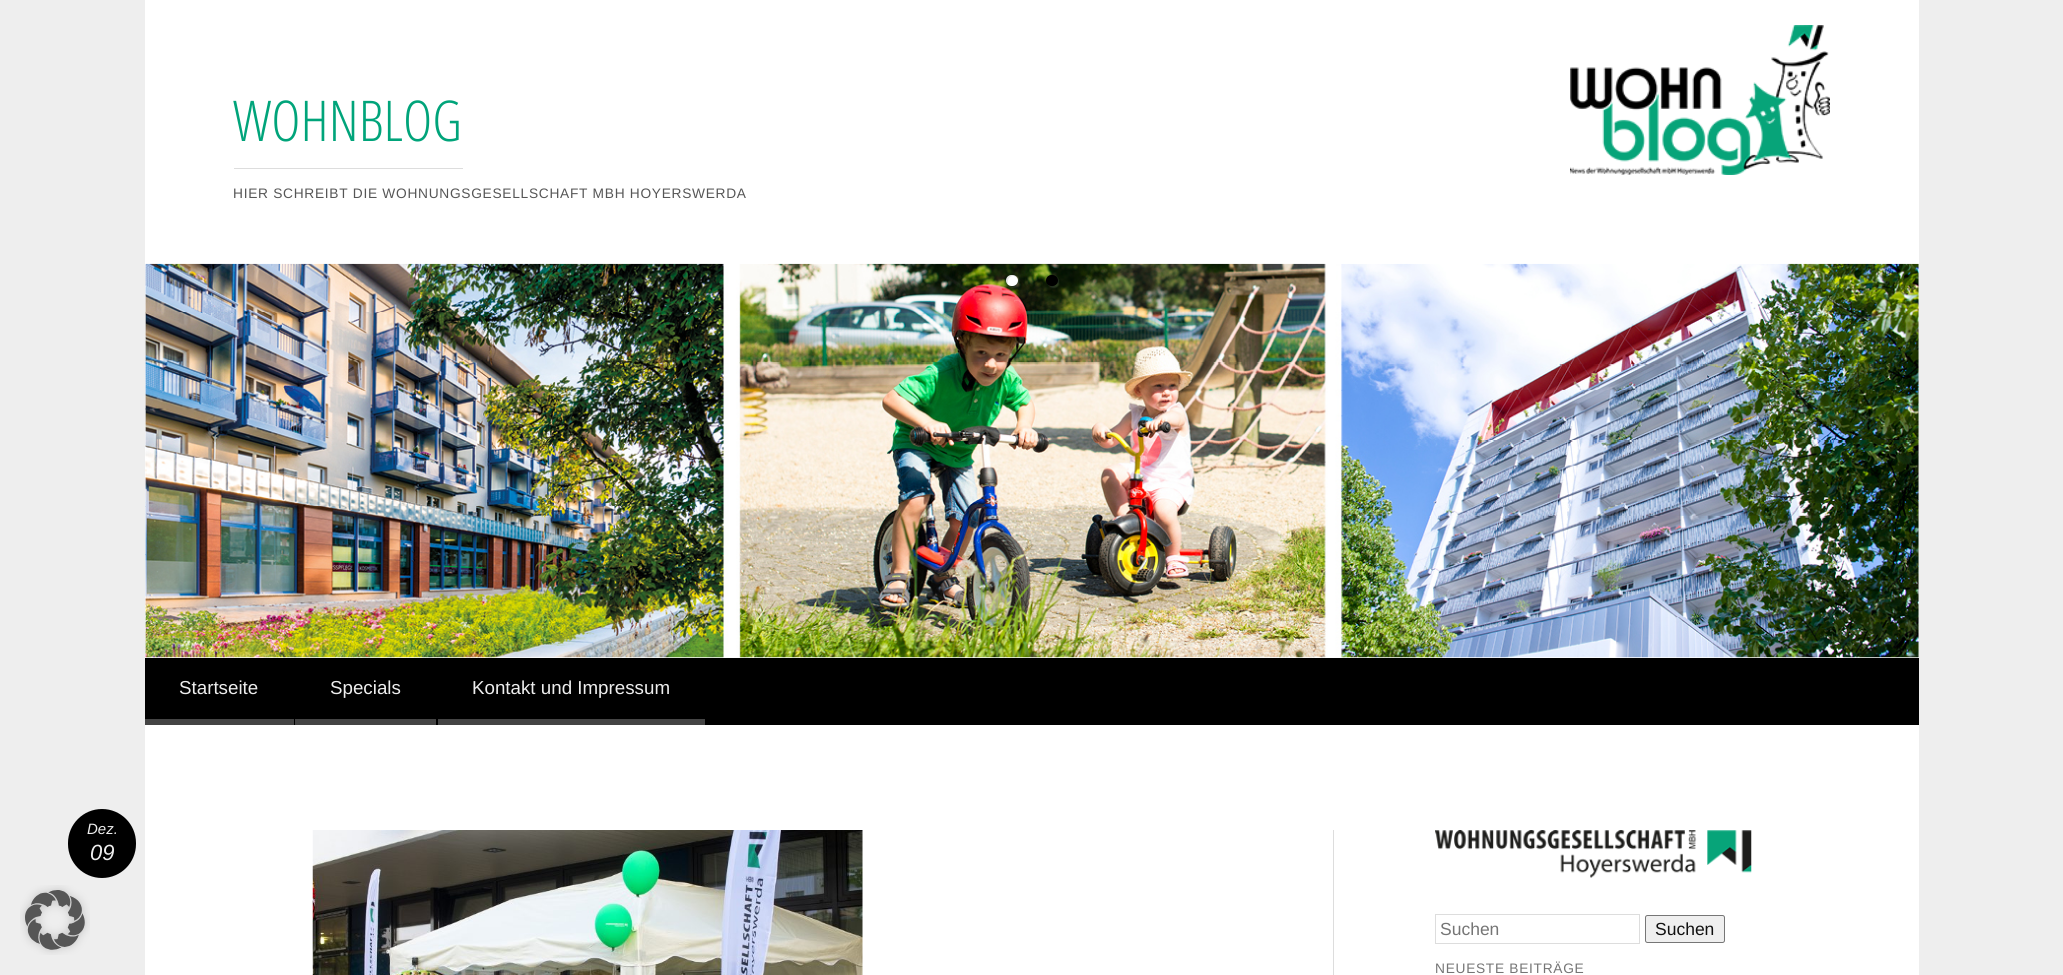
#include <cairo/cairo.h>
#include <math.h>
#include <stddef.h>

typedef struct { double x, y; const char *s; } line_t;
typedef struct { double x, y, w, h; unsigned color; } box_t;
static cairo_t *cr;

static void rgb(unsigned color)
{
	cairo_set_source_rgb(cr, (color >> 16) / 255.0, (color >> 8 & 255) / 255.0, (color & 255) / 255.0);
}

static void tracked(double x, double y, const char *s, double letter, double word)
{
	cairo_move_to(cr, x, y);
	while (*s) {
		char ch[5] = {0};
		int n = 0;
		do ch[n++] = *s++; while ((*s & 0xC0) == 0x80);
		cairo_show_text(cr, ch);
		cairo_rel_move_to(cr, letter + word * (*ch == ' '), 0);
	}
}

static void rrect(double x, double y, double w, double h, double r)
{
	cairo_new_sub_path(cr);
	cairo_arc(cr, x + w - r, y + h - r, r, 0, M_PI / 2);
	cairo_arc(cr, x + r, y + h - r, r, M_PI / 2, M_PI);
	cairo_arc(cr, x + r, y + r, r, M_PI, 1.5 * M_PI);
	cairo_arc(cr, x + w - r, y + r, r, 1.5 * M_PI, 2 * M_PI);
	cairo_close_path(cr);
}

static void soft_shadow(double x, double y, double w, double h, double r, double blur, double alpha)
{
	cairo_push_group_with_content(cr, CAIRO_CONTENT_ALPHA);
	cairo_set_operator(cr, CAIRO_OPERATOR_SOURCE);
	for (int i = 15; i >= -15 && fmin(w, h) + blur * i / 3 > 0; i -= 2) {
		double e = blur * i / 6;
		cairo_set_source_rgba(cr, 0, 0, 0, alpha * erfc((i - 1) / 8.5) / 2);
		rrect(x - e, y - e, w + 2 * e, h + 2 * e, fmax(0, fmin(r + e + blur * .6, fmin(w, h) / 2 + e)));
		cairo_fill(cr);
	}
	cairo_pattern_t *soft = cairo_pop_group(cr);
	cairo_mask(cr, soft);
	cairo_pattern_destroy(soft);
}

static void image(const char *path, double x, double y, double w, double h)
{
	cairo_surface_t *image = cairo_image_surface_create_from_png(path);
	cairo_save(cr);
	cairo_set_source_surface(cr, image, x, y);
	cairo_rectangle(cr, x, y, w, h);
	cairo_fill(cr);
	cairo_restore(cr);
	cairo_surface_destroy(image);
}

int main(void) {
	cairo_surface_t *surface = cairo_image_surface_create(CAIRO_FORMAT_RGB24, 2063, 975);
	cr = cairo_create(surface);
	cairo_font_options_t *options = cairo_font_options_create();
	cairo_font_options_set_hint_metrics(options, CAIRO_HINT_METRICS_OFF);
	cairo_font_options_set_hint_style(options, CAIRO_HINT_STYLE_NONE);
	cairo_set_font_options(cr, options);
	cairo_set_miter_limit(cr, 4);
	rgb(0xeeeeee);
	cairo_paint(cr);
	image("img/1.png", 20, 885, 70, 70);
	rgb(0xffffff);
	cairo_rectangle(cr, 145, 0, 1774, 975);
	cairo_fill(cr);
	rgb(0xdddddd);
	cairo_rectangle(cr, 234, 168, 229, 1);
	cairo_fill(cr);
	image("img/2.png", 1570, 25, 260, 150);
	image("img/3.png", 145, 263, 1774, 395);
	rgb(0xffffff);
	soft_shadow(1008, 276, 11, 12, 5.5, 0.5, 0.1);
	rgb(0xffffff);
	rrect(1006, 275, 12, 11, 5.5);
	cairo_fill(cr);
	cairo_set_source_rgba(cr, 0, 0, 0, 0.1);
	cairo_new_path(cr);
	cairo_move_to(cr, 1013, 276);
	cairo_curve_to(cr, 1015.5, 276, 1017.5, 278, 1018, 280);
	cairo_curve_to(cr, 1017.5, 272.5, 1005, 273.5, 1006, 281);
	cairo_curve_to(cr, 1006, 282.5, 1007, 284, 1008.5, 285);
	cairo_curve_to(cr, 1006.5, 281.5, 1008.5, 276, 1013, 276);
	cairo_close_path(cr);
	cairo_fill(cr);
	rgb(0xffffff);
	soft_shadow(1048, 276, 11, 12, 5.5, 0.5, 0.1);
	rgb(0x000000);
	rrect(1046, 275, 12, 11, 5.5);
	cairo_fill(cr);
	cairo_set_source_rgba(cr, 0, 0, 0, 0.1);
	cairo_new_path(cr);
	cairo_move_to(cr, 1053, 276);
	cairo_curve_to(cr, 1055.5, 276, 1057.5, 278, 1058, 280);
	cairo_curve_to(cr, 1057.5, 272.5, 1045, 273.5, 1046, 281);
	cairo_curve_to(cr, 1046, 282.5, 1047, 284, 1048.5, 285);
	cairo_curve_to(cr, 1046.5, 281.5, 1048.5, 276, 1053, 276);
	cairo_close_path(cr);
	cairo_fill(cr);
	{
		static const box_t items[] = {
			{145, 658, 1774, 67, 0x000000},
			{145, 719, 149, 6, 0x444444},
			{295, 719, 141, 6, 0x444444},
			{438, 719, 267, 6, 0x444444},
		};
		for (size_t i = 0; i < sizeof items / sizeof *items; i++) {
			rgb(items[i].color);
			cairo_rectangle(cr, items[i].x, items[i].y, items[i].w, items[i].h);
			cairo_fill(cr);
		}
	}
	rgb(0x000000);
	rrect(68, 809, 68, 69, 34);
	cairo_fill(cr);
	image("img/4.png", 312, 830, 551, 145);
	rgb(0xdddddd);
	cairo_rectangle(cr, 1333, 830, 1, 145);
	cairo_fill(cr);
	image("img/5.png", 1435, 830, 317, 48);
	cairo_rectangle(cr, 1435.5, 914.5, 204, 29);
	cairo_set_line_width(cr, 1);
	cairo_stroke(cr);
	rgb(0xefefef);
	rrect(1645.5, 915.5, 79, 27, 2);
	cairo_fill_preserve(cr);
	rgb(0x767676);
	cairo_stroke(cr);
	cairo_select_font_face(cr, "Open Sans Condensed Light", CAIRO_FONT_SLANT_NORMAL, CAIRO_FONT_WEIGHT_NORMAL);
	cairo_set_font_size(cr, 56.25);
	rgb(0x00a47a);
	cairo_move_to(cr, 233, 141);
	cairo_show_text(cr, "WOHNBLOG");
	cairo_select_font_face(cr, "Liberation Sans", CAIRO_FONT_SLANT_NORMAL, CAIRO_FONT_WEIGHT_NORMAL);
	cairo_set_font_size(cr, 13.75);
	rgb(0x565656);
	tracked(233, 198, "HIER SCHREIBT DIE WOHNUNGSGESELLSCHAFT MBH HOYERSWERDA", 0.7, 0);
	cairo_set_font_size(cr, 18.75);
	rgb(0xeeeeee);
	{
		static const line_t items[] = {
			{179, 694, "Startseite"},
			{330, 694, "Specials"},
			{472, 694, "Kontakt und Impressum"},
		};
		for (size_t i = 0; i < sizeof items / sizeof *items; i++) {
			cairo_move_to(cr, items[i].x, items[i].y);
			cairo_show_text(cr, items[i].s);
		}
	}
	cairo_select_font_face(cr, "Liberation Sans", CAIRO_FONT_SLANT_ITALIC, CAIRO_FONT_WEIGHT_NORMAL);
	cairo_set_font_size(cr, 15);
	cairo_move_to(cr, 87, 834);
	cairo_show_text(cr, "Dez.");
	cairo_set_font_size(cr, 22);
	cairo_move_to(cr, 90, 860);
	cairo_show_text(cr, "09");
	cairo_select_font_face(cr, "Liberation Sans", CAIRO_FONT_SLANT_NORMAL, CAIRO_FONT_WEIGHT_NORMAL);
	cairo_set_font_size(cr, 17.5);
	rgb(0x757575);
	cairo_move_to(cr, 1440, 935);
	cairo_show_text(cr, "Suchen");
	rgb(0x111111);
	cairo_move_to(cr, 1655, 935);
	cairo_show_text(cr, "Suchen");
	cairo_set_font_size(cr, 13.75);
	rgb(0x757575);
	tracked(1435, 973, "NEUESTE BEITRÄGE", 0.7, 0);
	cairo_surface_write_to_png(surface, "page.png");
	cairo_font_options_destroy(options);
	cairo_destroy(cr);
	cairo_surface_destroy(surface);
	return 0;
}
